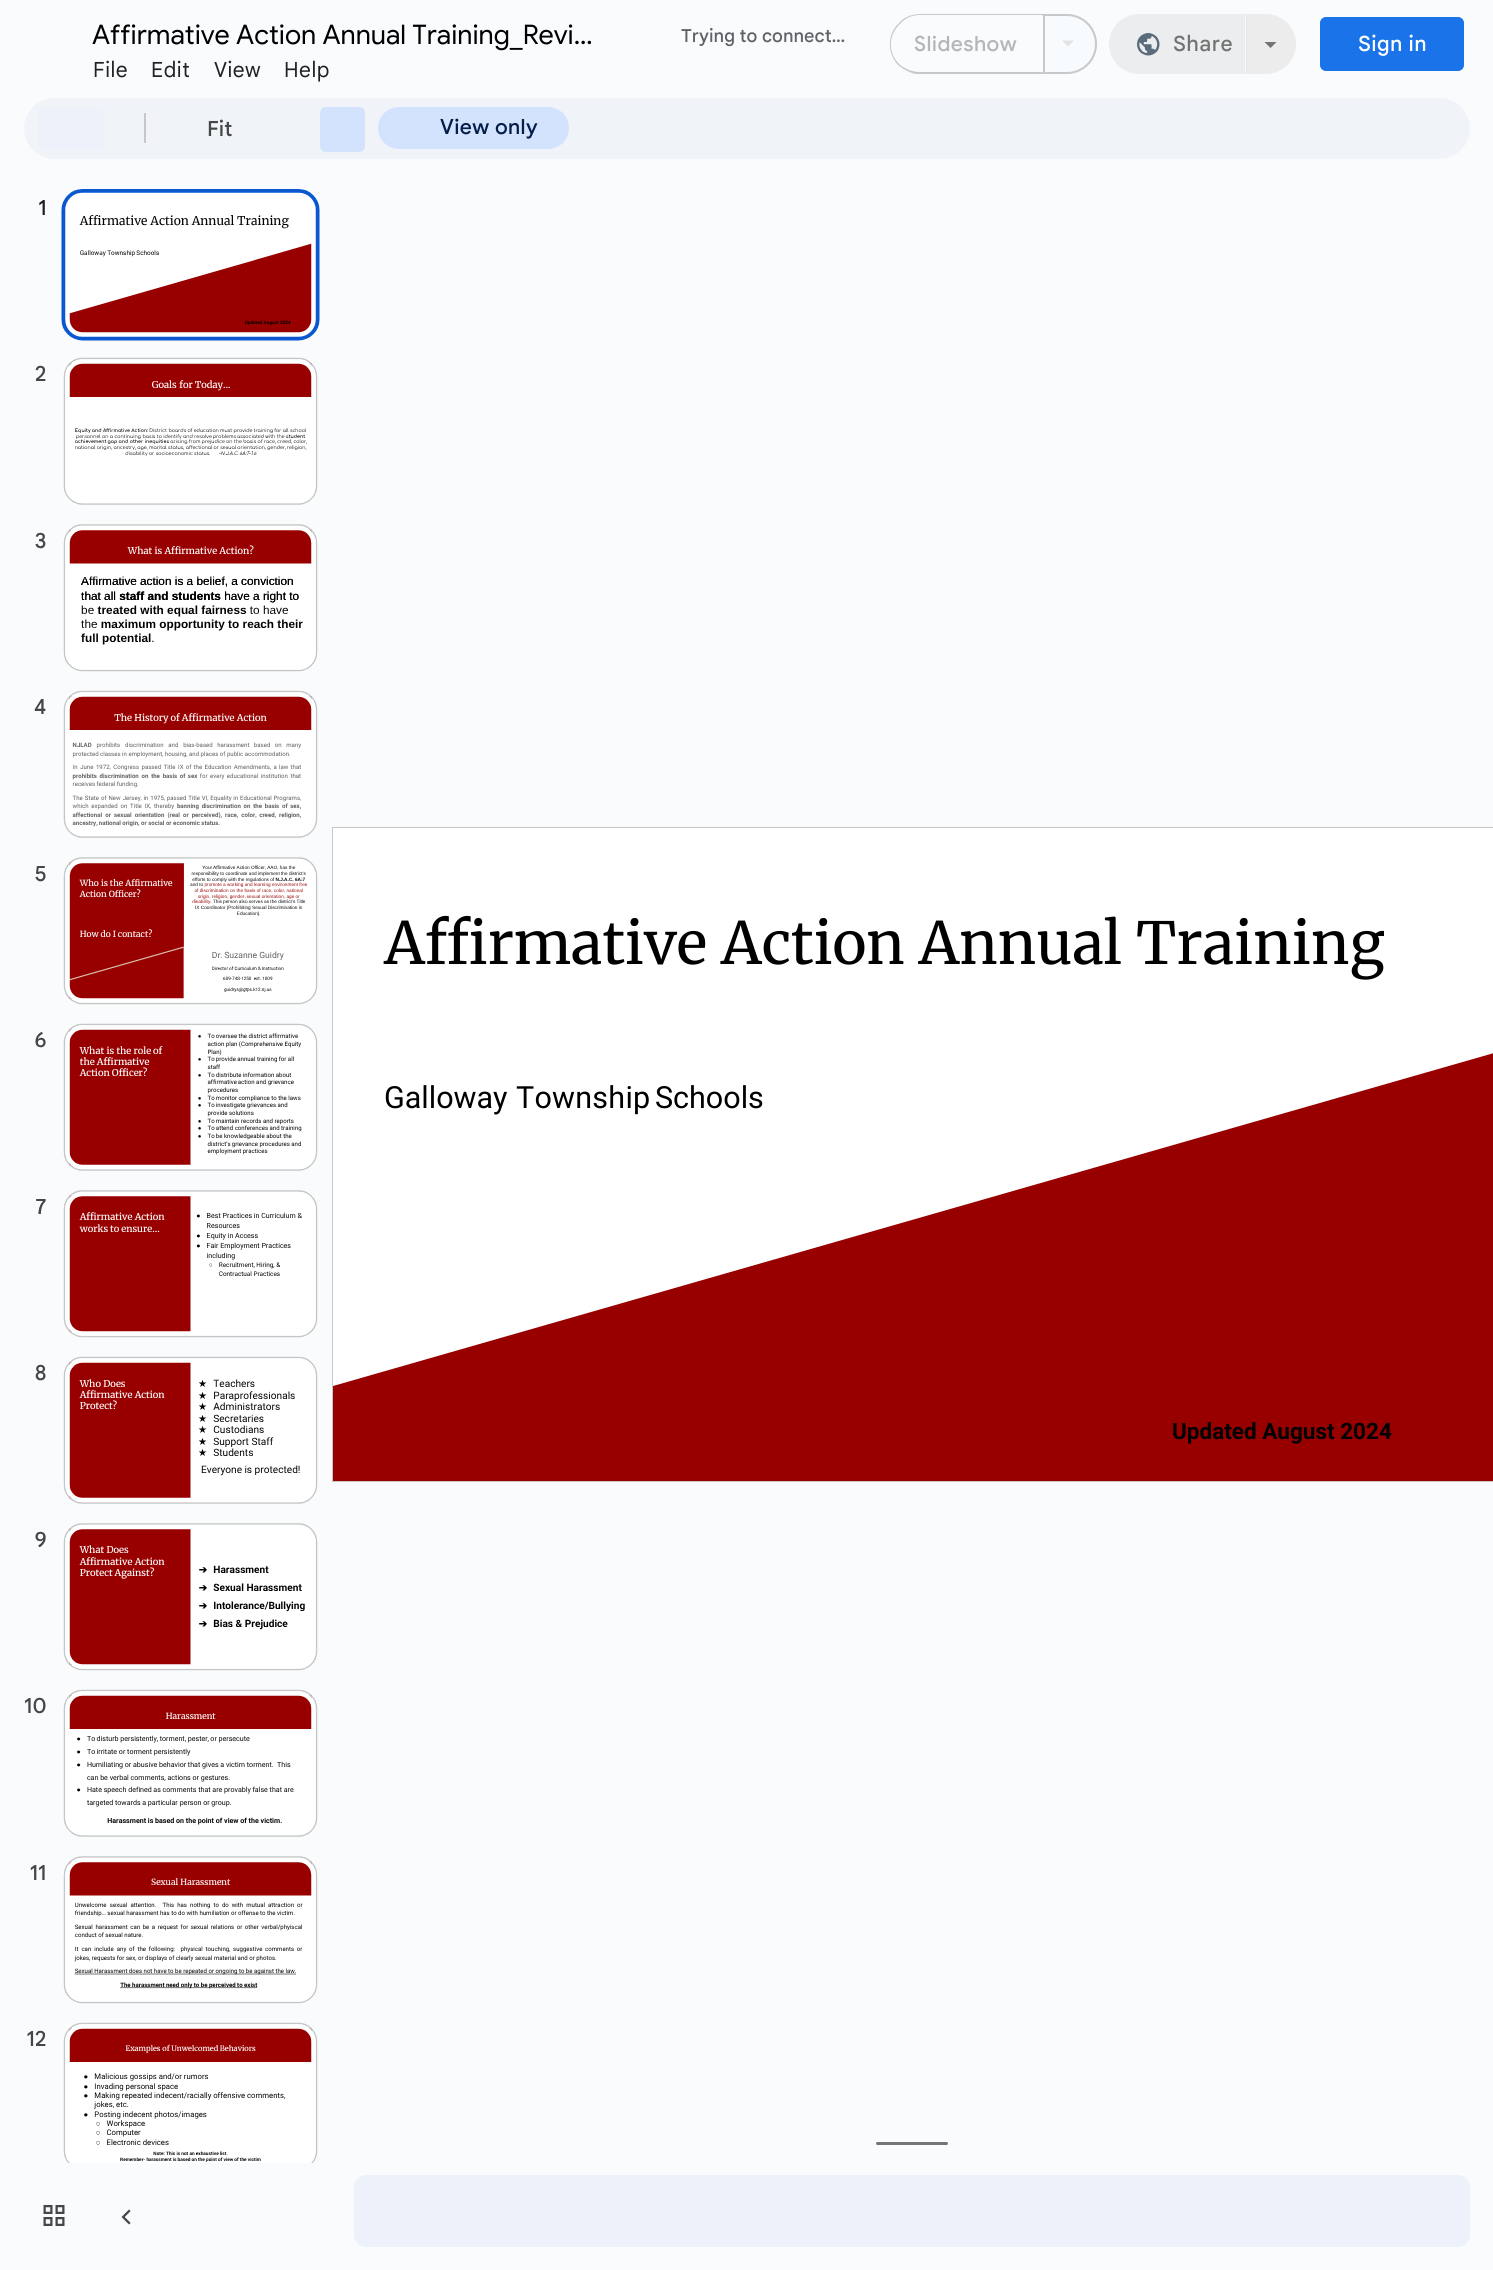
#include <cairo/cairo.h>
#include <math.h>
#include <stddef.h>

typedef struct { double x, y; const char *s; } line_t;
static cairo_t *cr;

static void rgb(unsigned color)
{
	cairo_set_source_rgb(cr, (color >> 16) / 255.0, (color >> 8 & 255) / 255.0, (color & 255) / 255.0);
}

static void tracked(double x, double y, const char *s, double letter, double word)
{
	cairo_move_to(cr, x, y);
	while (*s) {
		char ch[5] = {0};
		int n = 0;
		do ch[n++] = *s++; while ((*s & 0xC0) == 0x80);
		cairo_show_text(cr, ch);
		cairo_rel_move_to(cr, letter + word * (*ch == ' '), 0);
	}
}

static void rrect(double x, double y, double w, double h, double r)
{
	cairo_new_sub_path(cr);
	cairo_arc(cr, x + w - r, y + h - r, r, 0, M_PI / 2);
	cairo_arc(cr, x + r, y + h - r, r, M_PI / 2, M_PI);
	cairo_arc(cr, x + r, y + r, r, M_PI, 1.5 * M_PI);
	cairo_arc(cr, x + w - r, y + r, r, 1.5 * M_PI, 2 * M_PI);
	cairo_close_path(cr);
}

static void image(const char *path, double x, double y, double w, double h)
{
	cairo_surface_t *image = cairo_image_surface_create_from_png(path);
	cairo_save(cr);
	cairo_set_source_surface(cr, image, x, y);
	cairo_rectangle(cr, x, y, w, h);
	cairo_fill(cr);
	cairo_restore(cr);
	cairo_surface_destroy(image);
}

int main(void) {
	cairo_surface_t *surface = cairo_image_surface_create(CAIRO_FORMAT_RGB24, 1493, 2270);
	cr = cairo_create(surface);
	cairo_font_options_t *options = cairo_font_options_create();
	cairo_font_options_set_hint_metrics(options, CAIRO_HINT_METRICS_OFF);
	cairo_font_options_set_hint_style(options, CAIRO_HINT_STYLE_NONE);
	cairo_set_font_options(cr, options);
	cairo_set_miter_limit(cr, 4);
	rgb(0xf9fbfd);
	cairo_paint(cr);
	rgb(0xc6c9c9);
	cairo_new_path(cr);
	cairo_move_to(cr, 920, 14);
	cairo_curve_to(cr, 912, 14, 904, 17, 899, 23);
	cairo_line_to(cr, 900, 24);
	cairo_curve_to(cr, 905, 18, 912, 15, 920, 15);
	cairo_line_to(cr, 1042, 15);
	cairo_line_to(cr, 1042, 16);
	cairo_line_to(cr, 1044, 14);
	cairo_close_path(cr);
	cairo_fill(cr);
	cairo_new_path(cr);
	cairo_move_to(cr, 1044, 74);
	cairo_line_to(cr, 915, 74);
	cairo_curve_to(cr, 908, 72, 903, 69, 898, 65);
	cairo_line_to(cr, 899, 64);
	cairo_curve_to(cr, 905, 69, 912, 72, 920, 72);
	cairo_line_to(cr, 1042, 72);
	cairo_close_path(cr);
	cairo_fill(cr);
	cairo_set_source_rgba(cr, 0.455, 0.467, 0.459, 0.38);
	cairo_new_path(cr);
	cairo_move_to(cr, 899, 23);
	cairo_curve_to(cr, 887, 34, 887, 53, 898, 65);
	cairo_line_to(cr, 899, 64);
	cairo_curve_to(cr, 888, 53, 888, 35, 900, 24);
	cairo_close_path(cr);
	cairo_fill(cr);
	cairo_set_source_rgba(cr, 0.976, 0.984, 0.992, 0.38);
	cairo_new_path(cr);
	cairo_move_to(cr, 1043, 14);
	cairo_line_to(cr, 1067, 14);
	cairo_curve_to(cr, 1083.5, 14, 1097, 27.5, 1097, 44);
	cairo_curve_to(cr, 1097, 60.5, 1083.5, 74, 1067, 74);
	cairo_line_to(cr, 1043, 74);
	cairo_close_path(cr);
	cairo_fill(cr);
	cairo_new_path(cr);
	cairo_move_to(cr, 1044, 15);
	cairo_line_to(cr, 1067, 15);
	cairo_curve_to(cr, 1083, 15, 1096, 28, 1096, 44);
	cairo_curve_to(cr, 1096, 60, 1083, 73, 1067, 73);
	cairo_line_to(cr, 1044, 73);
	cairo_close_path(cr);
	cairo_set_source_rgba(cr, 0.455, 0.467, 0.459, 0.38);
	cairo_stroke(cr);
	rgb(0xe0e2e3);
	cairo_new_path(cr);
	cairo_move_to(cr, 1062, 40.5);
	cairo_line_to(cr, 1074, 40.5);
	cairo_line_to(cr, 1068, 46.5);
	cairo_close_path(cr);
	cairo_fill(cr);
	rgb(0xecedee);
	cairo_new_path(cr);
	cairo_move_to(cr, 1139, 14);
	cairo_line_to(cr, 1247, 14);
	cairo_line_to(cr, 1247, 74);
	cairo_line_to(cr, 1139, 74);
	cairo_curve_to(cr, 1122.5, 74, 1109, 60.5, 1109, 44);
	cairo_curve_to(cr, 1109, 27.5, 1122.5, 14, 1139, 14);
	cairo_close_path(cr);
	cairo_fill(cr);
	image("img/1.png", 1137, 33, 23, 23);
	cairo_set_source_rgba(cr, 0.894, 0.894, 0.894, 0.62);
	cairo_new_path(cr);
	cairo_move_to(cr, 1245, 14);
	cairo_line_to(cr, 1266, 14);
	cairo_curve_to(cr, 1282.5, 14, 1296, 27.5, 1296, 44);
	cairo_curve_to(cr, 1296, 60.5, 1282.5, 74, 1266, 74);
	cairo_line_to(cr, 1245, 74);
	cairo_close_path(cr);
	cairo_fill(cr);
	rgb(0xf8f8f9);
	cairo_new_path(cr);
	cairo_move_to(cr, 1246, 15);
	cairo_line_to(cr, 1245, 14);
	cairo_line_to(cr, 1245, 74);
	cairo_line_to(cr, 1246, 72);
	cairo_close_path(cr);
	cairo_fill(cr);
	rgb(0x727373);
	cairo_new_path(cr);
	cairo_move_to(cr, 1264.5, 42);
	cairo_line_to(cr, 1276.5, 42);
	cairo_line_to(cr, 1270.5, 48);
	cairo_close_path(cr);
	cairo_fill(cr);
	rgb(0x1a73e8);
	rrect(1320, 17, 144, 54, 6);
	cairo_fill(cr);
	image("img/3.png", 25, 189, 295, 1974);
	image("img/2.png", 81, 579, 218, 24);
	rgb(0xf0f4f9);
	rrect(24, 98, 1446, 61, 30.5);
	cairo_fill(cr);
	rgb(0xedf2fa);
	rrect(38, 108, 66, 42, 6);
	cairo_fill(cr);
	rgb(0xc7c7c7);
	cairo_rectangle(cr, 144, 113, 2, 30);
	cairo_fill(cr);
	rgb(0xd3e3fd);
	rrect(320, 107, 45, 45, 6);
	cairo_fill(cr);
	rrect(378, 107, 191, 42, 21);
	cairo_fill(cr);
	image("img/4.png", 43, 2205, 22, 21);
	image("img/5.png", 121, 2209, 10, 16);
	cairo_rectangle(cr, 333, 828, 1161, 653);
	rgb(0xc4c7c5);
	cairo_stroke(cr);
	rgb(0x980000);
	cairo_rectangle(cr, 333, 1053, 1160, 428);
	cairo_fill(cr);
	rgb(0xffffff);
	cairo_set_fill_rule(cr, CAIRO_FILL_RULE_EVEN_ODD);
	cairo_new_path(cr);
	cairo_move_to(cr, 333, 828);
	cairo_line_to(cr, 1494, 828);
	cairo_line_to(cr, 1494, 1053);
	cairo_line_to(cr, 333, 1386);
	cairo_close_path(cr);
	cairo_fill(cr);
	rgb(0x747775);
	rrect(876, 2142, 72, 3, 1.5);
	cairo_fill(cr);
	rgb(0xedf2fa);
	rrect(354, 2175, 1116, 72, 12);
	cairo_fill(cr);
	cairo_select_font_face(cr, "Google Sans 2", CAIRO_FONT_SLANT_NORMAL, CAIRO_FONT_WEIGHT_NORMAL);
	cairo_set_font_size(cr, 27);
	rgb(0x000000);
	cairo_move_to(cr, 92, 44);
	cairo_show_text(cr, "Affirmative Action Annual Training_Revi…");
	cairo_select_font_face(cr, "Google Sans Medium", CAIRO_FONT_SLANT_NORMAL, CAIRO_FONT_WEIGHT_NORMAL);
	cairo_set_font_size(cr, 18);
	rgb(0x5f6368);
	cairo_move_to(cr, 681, 42);
	cairo_show_text(cr, "Trying to connect…");
	cairo_select_font_face(cr, "Google Sans 2 Medium", CAIRO_FONT_SLANT_NORMAL, CAIRO_FONT_WEIGHT_NORMAL);
	cairo_set_font_size(cr, 21);
	rgb(0xb4b7b7);
	tracked(914, 51, "Slideshow", 0.4, 0);
	cairo_select_font_face(cr, "Google Sans Medium", CAIRO_FONT_SLANT_NORMAL, CAIRO_FONT_WEIGHT_NORMAL);
	rgb(0x727373);
	tracked(1173, 51, "Share", 0.4, 0);
	rgb(0xffffff);
	tracked(1358, 51, "Sign in", 0.4, 0);
	cairo_select_font_face(cr, "Google Sans", CAIRO_FONT_SLANT_NORMAL, CAIRO_FONT_WEIGHT_NORMAL);
	rgb(0x202124);
	{
		static const line_t items[] = {
			{93, 77, "File"},
			{151, 77, "Edit"},
			{214, 77, "View"},
			{284, 77, "Help"},
		};
		for (size_t i = 0; i < sizeof items / sizeof *items; i++) {
			tracked(items[i].x, items[i].y, items[i].s, 0.5, 0);
		}
	}
	cairo_select_font_face(cr, "Google Sans Medium", CAIRO_FONT_SLANT_NORMAL, CAIRO_FONT_WEIGHT_NORMAL);
	rgb(0x444746);
	cairo_move_to(cr, 207, 136);
	cairo_show_text(cr, "Fit");
	cairo_select_font_face(cr, "Google Sans 2 Medium", CAIRO_FONT_SLANT_NORMAL, CAIRO_FONT_WEIGHT_NORMAL);
	rgb(0x041e49);
	tracked(440, 134, "View only", 0.4, 0);
	cairo_select_font_face(cr, "Merriweather", CAIRO_FONT_SLANT_NORMAL, CAIRO_FONT_WEIGHT_NORMAL);
	cairo_set_font_size(cr, 58);
	rgb(0x000000);
	cairo_move_to(cr, 384, 964);
	cairo_show_text(cr, "Affirmative Action Annual");
	tracked(1136, 964, "Training", 0.25, 0);
	cairo_select_font_face(cr, "Roboto", CAIRO_FONT_SLANT_NORMAL, CAIRO_FONT_WEIGHT_NORMAL);
	cairo_set_font_size(cr, 30.5);
	cairo_move_to(cr, 384, 1108);
	cairo_show_text(cr, "Galloway");
	tracked(516, 1108, "Township", 0.25, 0);
	cairo_move_to(cr, 655, 1108);
	cairo_show_text(cr, "Schools");
	cairo_select_font_face(cr, "Roboto", CAIRO_FONT_SLANT_NORMAL, CAIRO_FONT_WEIGHT_BOLD);
	cairo_set_font_size(cr, 22.5);
	cairo_move_to(cr, 1172, 1439);
	cairo_show_text(cr, "Updated August 2024");
	cairo_surface_write_to_png(surface, "page.png");
	cairo_font_options_destroy(options);
	cairo_destroy(cr);
	cairo_surface_destroy(surface);
	return 0;
}
